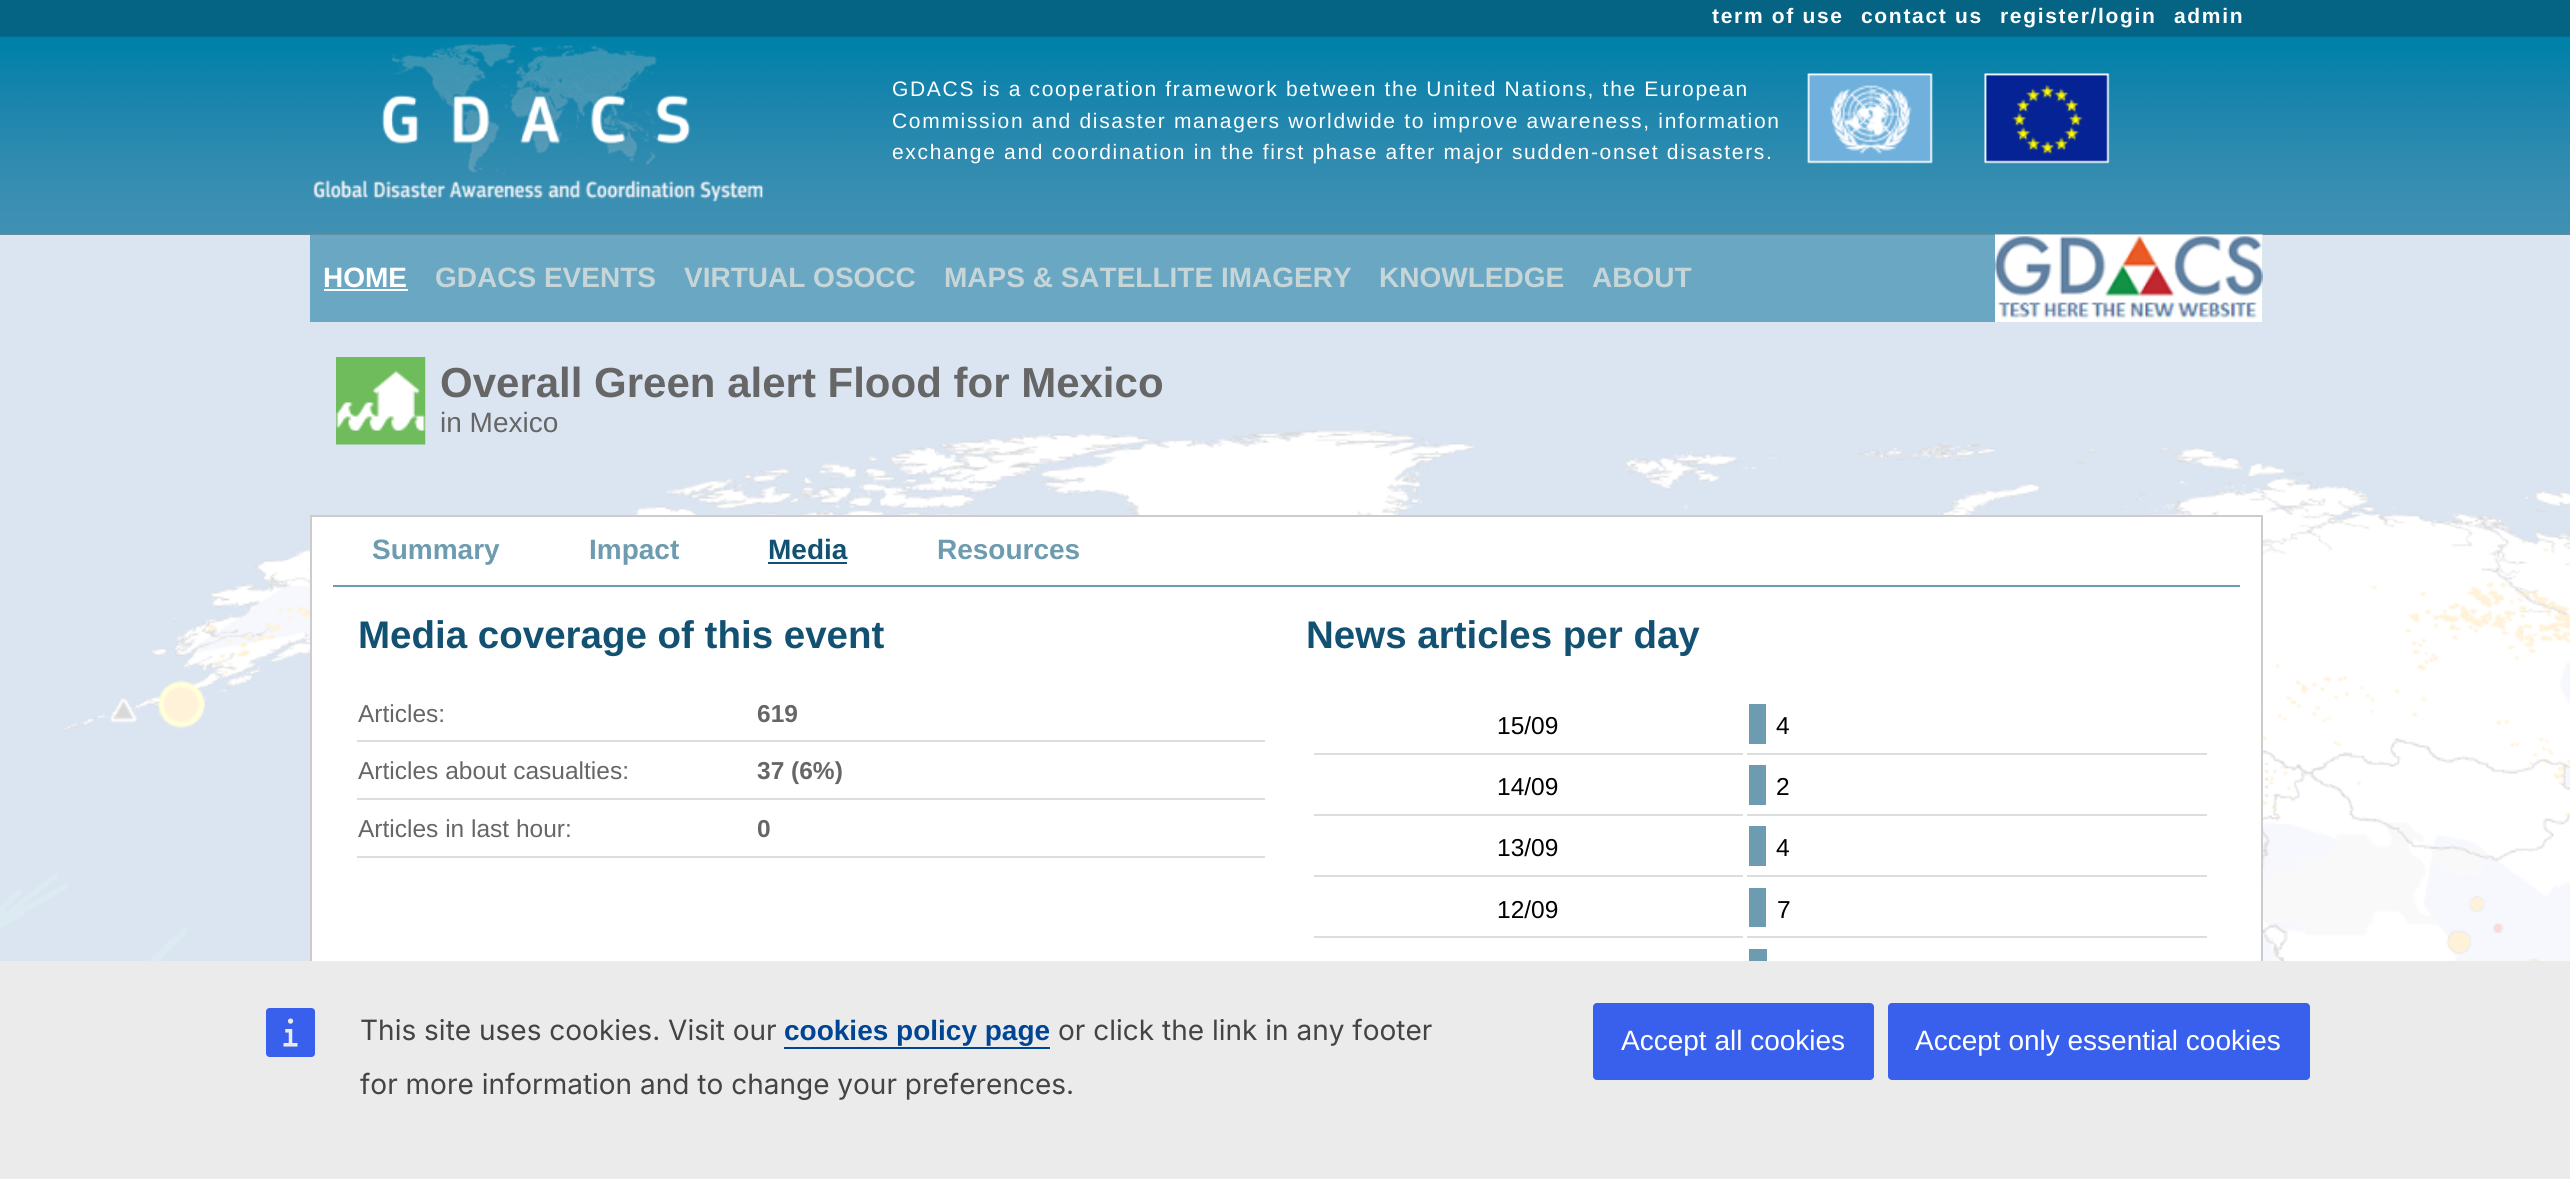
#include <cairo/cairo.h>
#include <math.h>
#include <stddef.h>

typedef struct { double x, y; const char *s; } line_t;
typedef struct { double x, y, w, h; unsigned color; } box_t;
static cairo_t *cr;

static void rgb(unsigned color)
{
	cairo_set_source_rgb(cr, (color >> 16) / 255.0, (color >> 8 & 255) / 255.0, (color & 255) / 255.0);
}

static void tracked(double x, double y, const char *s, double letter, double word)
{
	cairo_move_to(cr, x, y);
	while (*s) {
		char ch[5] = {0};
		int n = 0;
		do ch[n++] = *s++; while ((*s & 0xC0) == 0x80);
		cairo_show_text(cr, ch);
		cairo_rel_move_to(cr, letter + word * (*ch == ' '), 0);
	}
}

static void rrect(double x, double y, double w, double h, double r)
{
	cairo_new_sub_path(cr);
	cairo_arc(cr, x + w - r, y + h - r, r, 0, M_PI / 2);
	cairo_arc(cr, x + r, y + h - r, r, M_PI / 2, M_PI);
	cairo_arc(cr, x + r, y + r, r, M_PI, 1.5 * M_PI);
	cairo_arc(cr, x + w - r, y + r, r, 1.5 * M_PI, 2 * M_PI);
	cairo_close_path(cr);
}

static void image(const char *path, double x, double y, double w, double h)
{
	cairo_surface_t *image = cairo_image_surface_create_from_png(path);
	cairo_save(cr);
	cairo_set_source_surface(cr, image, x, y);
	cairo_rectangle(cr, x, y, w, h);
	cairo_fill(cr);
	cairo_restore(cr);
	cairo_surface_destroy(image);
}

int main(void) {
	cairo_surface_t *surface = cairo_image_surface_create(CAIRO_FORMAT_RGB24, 2570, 1179);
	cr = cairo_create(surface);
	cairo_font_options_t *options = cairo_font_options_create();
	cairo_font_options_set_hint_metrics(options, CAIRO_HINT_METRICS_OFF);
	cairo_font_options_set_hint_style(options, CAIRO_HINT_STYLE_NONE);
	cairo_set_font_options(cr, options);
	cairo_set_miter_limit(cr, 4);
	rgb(0xffffff);
	cairo_paint(cr);
	image("img/1.png", 0, 235, 2570, 726);
	rgb(0x888888);
	cairo_rectangle(cr, 0, 234, 2570, 1);
	cairo_fill(cr);
	image("img/2.png", 0, 0, 2570, 235);
	image("img/3.png", 313, 43, 451, 159);
	image("img/4.png", 1807, 73, 303, 91);
	rgb(0x69a7c3);
	cairo_rectangle(cr, 310, 235, 1953, 87);
	cairo_fill(cr);
	rgb(0xffffff);
	cairo_rectangle(cr, 324, 289, 84, 2);
	cairo_fill(cr);
	image("img/5.png", 1995, 234, 268, 88);
	image("img/6.png", 336, 357, 90, 88);
	{
		static const box_t items[] = {
			{312, 517, 1949, 444, 0xffffff},
			{310, 515, 1953, 2, 0xcccccc},
			{2261, 515, 2, 446, 0xcccccc},
			{310, 515, 2, 446, 0xcccccc},
			{333, 585, 1907, 2, 0x6d9baf},
			{768, 562, 79, 2, 0x125172},
			{357, 740, 908, 2, 0xdddddd},
			{357, 798, 908, 2, 0xdddddd},
			{357, 856, 908, 2, 0xdddddd},
			{1314, 753, 429, 2, 0xdddddd},
			{1747, 753, 460, 2, 0xdddddd},
			{1749, 704, 17, 40, 0x6d9baf},
			{1314, 814, 429, 2, 0xdddddd},
			{1747, 814, 460, 2, 0xdddddd},
			{1749, 765, 17, 40, 0x6d9baf},
			{1314, 875, 429, 2, 0xdddddd},
			{1747, 875, 460, 2, 0xdddddd},
			{1749, 826, 17, 40, 0x6d9baf},
			{1314, 936, 429, 2, 0xdddddd},
			{1747, 936, 460, 2, 0xdddddd},
			{1749, 888, 17, 39, 0x6d9baf},
			{1749, 949, 18, 12, 0x6d9baf},
			{0, 961, 2570, 218, 0xebebeb},
		};
		for (size_t i = 0; i < sizeof items / sizeof *items; i++) {
			rgb(items[i].color);
			cairo_rectangle(cr, items[i].x, items[i].y, items[i].w, items[i].h);
			cairo_fill(cr);
		}
	}
	image("img/7.png", 266, 1008, 49, 49);
	rgb(0x004494);
	cairo_rectangle(cr, 784, 1047, 266, 2);
	cairo_fill(cr);
	rgb(0x3860ed);
	rrect(1593, 1003, 281, 77, 4);
	cairo_fill(cr);
	rrect(1888, 1003, 422, 77, 4);
	cairo_fill(cr);
	cairo_select_font_face(cr, "Liberation Sans", CAIRO_FONT_SLANT_NORMAL, CAIRO_FONT_WEIGHT_BOLD);
	cairo_set_font_size(cr, 21);
	rgb(0xffffff);
	{
		static const line_t items[] = {
			{1712, 23, "term of use"},
			{1861, 23, "contact us"},
			{2000, 23, "register/login"},
			{2174, 23, "admin"},
		};
		for (size_t i = 0; i < sizeof items / sizeof *items; i++) {
			tracked(items[i].x, items[i].y, items[i].s, 1.68, 0);
		}
	}
	cairo_select_font_face(cr, "Liberation Sans", CAIRO_FONT_SLANT_NORMAL, CAIRO_FONT_WEIGHT_NORMAL);
	{
		static const line_t items[] = {
			{892, 96, "GDACS is a cooperation framework between the United Nations, the European"},
			{892, 128, "Commission and disaster managers worldwide to improve awareness, information"},
			{892, 159, "exchange and coordination in the first phase after major sudden-onset disasters."},
		};
		for (size_t i = 0; i < sizeof items / sizeof *items; i++) {
			tracked(items[i].x, items[i].y, items[i].s, 1.68, 0);
		}
	}
	cairo_select_font_face(cr, "Liberation Sans", CAIRO_FONT_SLANT_NORMAL, CAIRO_FONT_WEIGHT_BOLD);
	cairo_set_font_size(cr, 28);
	cairo_move_to(cr, 323, 287);
	cairo_show_text(cr, "HOME");
	rgb(0xc5d5d8);
	{
		static const line_t items[] = {
			{435, 287, "GDACS EVENTS"},
			{684, 287, "VIRTUAL OSOCC"},
			{944, 287, "MAPS & SATELLITE IMAGERY"},
			{1379, 287, "KNOWLEDGE"},
			{1592, 287, "ABOUT"},
		};
		for (size_t i = 0; i < sizeof items / sizeof *items; i++) {
			cairo_move_to(cr, items[i].x, items[i].y);
			cairo_show_text(cr, items[i].s);
		}
	}
	cairo_set_font_size(cr, 42);
	rgb(0x666666);
	cairo_move_to(cr, 440, 397);
	cairo_show_text(cr, "Overall Green alert Flood for Mexico");
	cairo_select_font_face(cr, "Liberation Sans", CAIRO_FONT_SLANT_NORMAL, CAIRO_FONT_WEIGHT_NORMAL);
	cairo_set_font_size(cr, 28);
	cairo_move_to(cr, 440, 432);
	cairo_show_text(cr, "in Mexico");
	cairo_select_font_face(cr, "Liberation Sans", CAIRO_FONT_SLANT_NORMAL, CAIRO_FONT_WEIGHT_BOLD);
	rgb(0x6d9baf);
	cairo_move_to(cr, 372, 559);
	cairo_show_text(cr, "Summary");
	cairo_move_to(cr, 589, 559);
	cairo_show_text(cr, "Impact");
	rgb(0x125172);
	cairo_move_to(cr, 768, 559);
	cairo_show_text(cr, "Media");
	rgb(0x6d9baf);
	cairo_move_to(cr, 937, 559);
	cairo_show_text(cr, "Resources");
	cairo_set_font_size(cr, 38.5);
	rgb(0x125172);
	cairo_move_to(cr, 358, 648);
	cairo_show_text(cr, "Media coverage of this event");
	cairo_select_font_face(cr, "Liberation Sans", CAIRO_FONT_SLANT_NORMAL, CAIRO_FONT_WEIGHT_NORMAL);
	cairo_set_font_size(cr, 24.5);
	rgb(0x666666);
	cairo_move_to(cr, 358, 722);
	cairo_show_text(cr, "Articles:");
	cairo_select_font_face(cr, "Liberation Sans", CAIRO_FONT_SLANT_NORMAL, CAIRO_FONT_WEIGHT_BOLD);
	cairo_move_to(cr, 757, 722);
	cairo_show_text(cr, "619");
	cairo_select_font_face(cr, "Liberation Sans", CAIRO_FONT_SLANT_NORMAL, CAIRO_FONT_WEIGHT_NORMAL);
	cairo_move_to(cr, 358, 779);
	cairo_show_text(cr, "Articles about casualties:");
	cairo_select_font_face(cr, "Liberation Sans", CAIRO_FONT_SLANT_NORMAL, CAIRO_FONT_WEIGHT_BOLD);
	cairo_move_to(cr, 757, 779);
	cairo_show_text(cr, "37 (6%)");
	cairo_select_font_face(cr, "Liberation Sans", CAIRO_FONT_SLANT_NORMAL, CAIRO_FONT_WEIGHT_NORMAL);
	cairo_move_to(cr, 358, 837);
	cairo_show_text(cr, "Articles in last hour:");
	cairo_select_font_face(cr, "Liberation Sans", CAIRO_FONT_SLANT_NORMAL, CAIRO_FONT_WEIGHT_BOLD);
	cairo_move_to(cr, 757, 837);
	cairo_show_text(cr, "0");
	cairo_set_font_size(cr, 38.5);
	rgb(0x125172);
	cairo_move_to(cr, 1306, 648);
	cairo_show_text(cr, "News articles per day");
	cairo_select_font_face(cr, "Liberation Sans", CAIRO_FONT_SLANT_NORMAL, CAIRO_FONT_WEIGHT_NORMAL);
	cairo_set_font_size(cr, 24.5);
	rgb(0x000000);
	{
		static const line_t items[] = {
			{1497, 734, "15/09"},
			{1776, 734, "4"},
			{1497, 795, "14/09"},
			{1776, 795, "2"},
			{1497, 856, "13/09"},
			{1776, 856, "4"},
			{1497, 918, "12/09"},
			{1777, 918, "7"},
		};
		for (size_t i = 0; i < sizeof items / sizeof *items; i++) {
			cairo_move_to(cr, items[i].x, items[i].y);
			cairo_show_text(cr, items[i].s);
		}
	}
	cairo_select_font_face(cr, "Inter", CAIRO_FONT_SLANT_NORMAL, CAIRO_FONT_WEIGHT_NORMAL);
	cairo_set_font_size(cr, 28);
	rgb(0x444444);
	cairo_move_to(cr, 360, 1040);
	cairo_show_text(cr, "This site uses cookies. Visit our");
	cairo_select_font_face(cr, "Liberation Sans", CAIRO_FONT_SLANT_NORMAL, CAIRO_FONT_WEIGHT_BOLD);
	rgb(0x004494);
	cairo_move_to(cr, 784, 1040);
	cairo_show_text(cr, "cookies policy page");
	cairo_select_font_face(cr, "Inter", CAIRO_FONT_SLANT_NORMAL, CAIRO_FONT_WEIGHT_NORMAL);
	rgb(0x444444);
	cairo_move_to(cr, 1058, 1040);
	cairo_show_text(cr, "or click the link in any footer");
	cairo_move_to(cr, 360, 1094);
	cairo_show_text(cr, "for more information and to change your preferences.");
	cairo_select_font_face(cr, "Liberation Sans", CAIRO_FONT_SLANT_NORMAL, CAIRO_FONT_WEIGHT_NORMAL);
	rgb(0xffffff);
	cairo_move_to(cr, 1621, 1050);
	cairo_show_text(cr, "Accept all cookies");
	cairo_move_to(cr, 1915, 1050);
	cairo_show_text(cr, "Accept only essential cookies");
	cairo_surface_write_to_png(surface, "page.png");
	cairo_font_options_destroy(options);
	cairo_destroy(cr);
	cairo_surface_destroy(surface);
	return 0;
}
